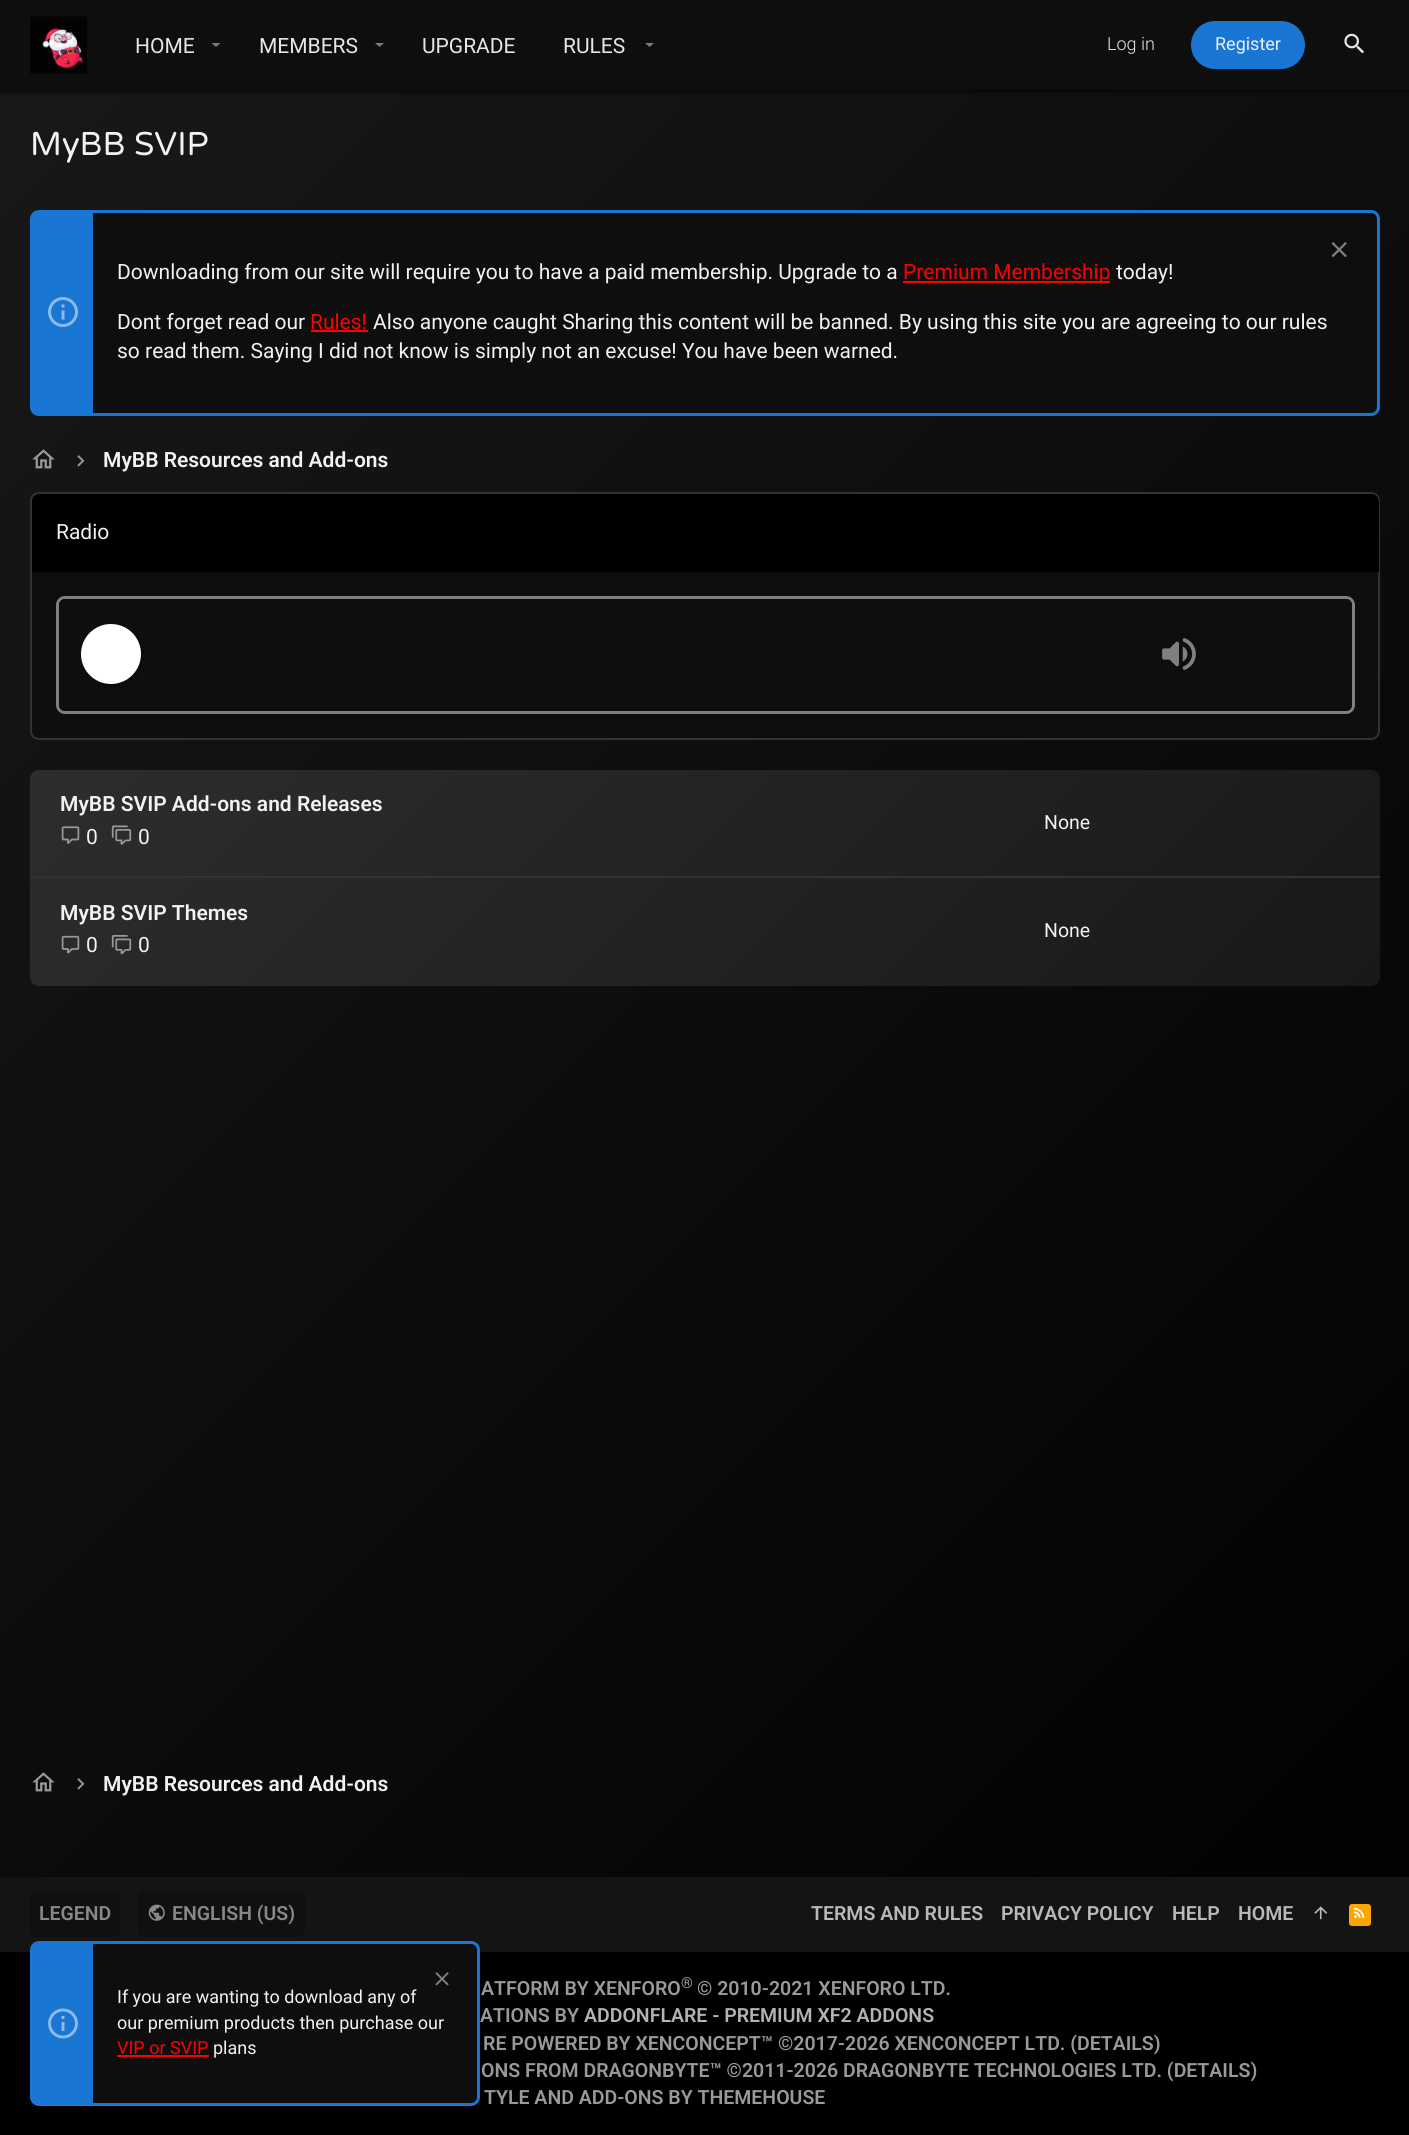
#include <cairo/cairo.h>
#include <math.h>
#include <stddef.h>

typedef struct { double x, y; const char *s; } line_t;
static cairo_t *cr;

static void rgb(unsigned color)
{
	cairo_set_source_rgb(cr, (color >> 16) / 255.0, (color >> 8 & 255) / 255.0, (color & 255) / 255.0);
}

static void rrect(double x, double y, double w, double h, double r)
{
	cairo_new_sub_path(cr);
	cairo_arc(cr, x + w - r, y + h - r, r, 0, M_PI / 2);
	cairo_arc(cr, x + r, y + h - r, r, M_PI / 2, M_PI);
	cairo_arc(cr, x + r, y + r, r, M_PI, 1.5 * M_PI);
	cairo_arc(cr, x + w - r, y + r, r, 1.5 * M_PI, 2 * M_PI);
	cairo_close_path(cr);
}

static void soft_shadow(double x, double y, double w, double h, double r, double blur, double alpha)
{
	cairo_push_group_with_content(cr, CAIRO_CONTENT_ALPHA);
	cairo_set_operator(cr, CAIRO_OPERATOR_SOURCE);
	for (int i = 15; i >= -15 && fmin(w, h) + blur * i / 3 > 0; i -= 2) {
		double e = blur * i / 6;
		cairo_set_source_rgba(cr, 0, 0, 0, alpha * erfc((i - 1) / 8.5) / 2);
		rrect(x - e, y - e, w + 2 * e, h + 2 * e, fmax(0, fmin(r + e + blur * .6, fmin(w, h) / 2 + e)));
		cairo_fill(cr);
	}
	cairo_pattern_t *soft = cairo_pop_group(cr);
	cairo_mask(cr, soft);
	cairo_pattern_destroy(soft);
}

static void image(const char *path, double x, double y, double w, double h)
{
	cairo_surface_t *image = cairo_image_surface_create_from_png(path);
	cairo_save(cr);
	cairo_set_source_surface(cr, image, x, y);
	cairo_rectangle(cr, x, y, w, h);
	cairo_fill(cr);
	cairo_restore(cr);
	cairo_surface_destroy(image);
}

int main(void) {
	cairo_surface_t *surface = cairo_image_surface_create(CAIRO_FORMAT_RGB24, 1409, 2135);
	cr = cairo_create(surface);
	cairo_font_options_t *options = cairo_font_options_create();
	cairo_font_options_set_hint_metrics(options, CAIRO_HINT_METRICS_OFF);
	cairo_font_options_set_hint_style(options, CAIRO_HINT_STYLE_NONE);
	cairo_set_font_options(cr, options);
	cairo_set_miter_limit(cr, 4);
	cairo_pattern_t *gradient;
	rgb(0xffffff);
	cairo_paint(cr);
	gradient = cairo_pattern_create_linear(-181, 182, 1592, 1955);
	cairo_pattern_add_color_stop_rgba(gradient, 0, 0.098, 0.098, 0.098, 1);
	cairo_pattern_add_color_stop_rgba(gradient, 1, 0, 0, 0, 1);
	cairo_set_source(cr, gradient);
	cairo_pattern_destroy(gradient);
	cairo_rectangle(cr, 0, 90, 1409, 1787);
	cairo_fill(cr);
	rgb(0x000000);
	soft_shadow(0, 2, 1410, 90, 0, 3, 0.4);
	soft_shadow(0, 3, 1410, 90, 0, 2, 0.26);
	soft_shadow(0, 0, 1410, 90, 0, 2, 0.3);
	rgb(0x0e0e0e);
	cairo_rectangle(cr, 0, 0, 1409, 90);
	cairo_fill(cr);
	image("img/1.png", 30, 16, 57, 58);
	rgb(0x7b7b7b);
	cairo_new_path(cr);
	cairo_move_to(cr, 211.5, 43);
	cairo_line_to(cr, 216, 47);
	cairo_line_to(cr, 220.5, 43);
	cairo_close_path(cr);
	cairo_fill(cr);
	cairo_new_path(cr);
	cairo_move_to(cr, 375, 43);
	cairo_line_to(cr, 379.5, 47);
	cairo_line_to(cr, 384, 43);
	cairo_close_path(cr);
	cairo_fill(cr);
	cairo_new_path(cr);
	cairo_move_to(cr, 645, 43);
	cairo_line_to(cr, 649.5, 47);
	cairo_line_to(cr, 654, 43);
	cairo_close_path(cr);
	cairo_fill(cr);
	rgb(0x1976d2);
	rrect(1191, 21, 114, 48, 24);
	cairo_fill(cr);
	image("img/2.png", 1344, 33, 20, 21);
	rgb(0x0e0e0e);
	rrect(31.5, 211.5, 1347, 203, 7.5);
	cairo_fill_preserve(cr);
	rgb(0x1976d2);
	cairo_set_line_width(cr, 3);
	cairo_stroke(cr);
	cairo_rectangle(cr, 33, 213, 60, 200);
	cairo_fill(cr);
	image("img/3.png", 48, 297, 30, 30);
	image("img/4.png", 1331, 242, 16, 16);
	rgb(0xff0000);
	cairo_rectangle(cr, 903, 281, 207, 2);
	cairo_fill(cr);
	cairo_rectangle(cr, 311, 330, 57, 2);
	cairo_fill(cr);
	image("img/5.png", 32, 449, 23, 20);
	image("img/6.png", 77, 455, 8, 12);
	rgb(0x0e0e0e);
	rrect(31, 493, 1348, 246, 8);
	cairo_fill_preserve(cr);
	rgb(0x323232);
	cairo_set_line_width(cr, 2);
	cairo_stroke(cr);
	rgb(0x000000);
	cairo_new_path(cr);
	cairo_move_to(cr, 40, 494);
	cairo_line_to(cr, 1371, 494);
	cairo_curve_to(cr, 1375.5, 494, 1379, 497.5, 1379, 502);
	cairo_line_to(cr, 1379, 572);
	cairo_line_to(cr, 32, 572);
	cairo_line_to(cr, 32, 502);
	cairo_curve_to(cr, 32, 497.5, 35.5, 494, 40, 494);
	cairo_close_path(cr);
	cairo_fill(cr);
	rrect(57.5, 597.5, 1296, 115, 7.5);
	rgb(0x817f80);
	cairo_set_line_width(cr, 3);
	cairo_stroke(cr);
	rgb(0x0e0e0e);
	rrect(59, 599, 1293, 112, 6);
	cairo_fill(cr);
	rgb(0x000000);
	soft_shadow(87, 632, 51, 51, 25.5, 4.5, 1);
	rgb(0xffffff);
	cairo_arc(cr, 111, 654, 30, 0, 2 * M_PI);
	cairo_fill(cr);
	image("img/7.png", 1162, 638, 34, 32);
	gradient = cairo_pattern_create_linear(313, 486, 1097, 1269);
	cairo_pattern_add_color_stop_rgba(gradient, 0, 0.176, 0.176, 0.176, 1);
	cairo_pattern_add_color_stop_rgba(gradient, 1, 0.098, 0.098, 0.098, 1);
	cairo_set_source(cr, gradient);
	cairo_pattern_destroy(gradient);
	rrect(30, 770, 1350, 216, 9);
	cairo_fill(cr);
	image("img/8.png", 61, 826, 19, 18);
	image("img/9.png", 111, 825, 21, 20);
	rgb(0x323232);
	cairo_rectangle(cr, 30, 876, 1350, 2);
	cairo_fill(cr);
	image("img/10.png", 61, 935, 19, 19);
	image("img/11.png", 111, 935, 21, 20);
	image("img/12.png", 32, 1772, 23, 20);
	image("img/13.png", 77, 1778, 8, 12);
	rgb(0x141414);
	cairo_rectangle(cr, 0, 1877, 1409, 75);
	cairo_fill(cr);
	rgb(0x101010);
	rrect(30, 1892, 90, 45, 5);
	cairo_fill(cr);
	rrect(138, 1892, 167, 45, 5);
	cairo_fill(cr);
	image("img/14.png", 148, 1904, 17, 17);
	image("img/15.png", 1314, 1906, 14, 14);
	rgb(0xffa500);
	rrect(1349, 1904, 22, 22, 3);
	cairo_fill(cr);
	image("img/16.png", 1354, 1907, 11, 11);
	rgb(0x000000);
	cairo_rectangle(cr, 0, 1952, 1409, 183);
	cairo_fill(cr);
	rgb(0x000000);
	soft_shadow(30, 1943, 450, 165, 9, 3, 0.4);
	rgb(0x0e0e0e);
	rrect(31.5, 1942.5, 447, 162, 7.5);
	cairo_fill_preserve(cr);
	rgb(0x1976d2);
	cairo_stroke(cr);
	cairo_rectangle(cr, 33, 1944, 60, 159);
	cairo_fill(cr);
	image("img/17.png", 48, 2008, 30, 31);
	image("img/18.png", 435, 1972, 14, 14);
	rgb(0xff0000);
	cairo_rectangle(cr, 117, 2055, 92, 2);
	cairo_fill(cr);
	cairo_select_font_face(cr, "Roboto", CAIRO_FONT_SLANT_NORMAL, CAIRO_FONT_WEIGHT_NORMAL);
	cairo_set_font_size(cr, 21);
	rgb(0xe7e7e7);
	{
		static const line_t items[] = {
			{135, 53, "HOME"},
			{259, 53, "MEMBERS"},
			{422, 53, "UPGRADE"},
			{563, 53, "RULES"},
		};
		for (size_t i = 0; i < sizeof items / sizeof *items; i++) {
			cairo_move_to(cr, items[i].x, items[i].y);
			cairo_show_text(cr, items[i].s);
		}
	}
	cairo_select_font_face(cr, "Roboto Light", CAIRO_FONT_SLANT_NORMAL, CAIRO_FONT_WEIGHT_NORMAL);
	cairo_set_font_size(cr, 18);
	cairo_move_to(cr, 1107, 50);
	cairo_show_text(cr, "Log in");
	cairo_select_font_face(cr, "Roboto", CAIRO_FONT_SLANT_NORMAL, CAIRO_FONT_WEIGHT_NORMAL);
	rgb(0xe8f1fb);
	cairo_move_to(cr, 1215, 50);
	cairo_show_text(cr, "Register");
	cairo_select_font_face(cr, "Varela Round", CAIRO_FONT_SLANT_NORMAL, CAIRO_FONT_WEIGHT_NORMAL);
	cairo_set_font_size(cr, 33);
	rgb(0xf2f2f2);
	cairo_move_to(cr, 30, 155);
	cairo_show_text(cr, "MyBB SVIP");
	cairo_select_font_face(cr, "Roboto", CAIRO_FONT_SLANT_NORMAL, CAIRO_FONT_WEIGHT_NORMAL);
	cairo_set_font_size(cr, 21);
	cairo_move_to(cr, 117, 279);
	cairo_show_text(cr, "Downloading from our site will require you to have a paid membership. Upgrade to a");
	rgb(0xff0000);
	cairo_move_to(cr, 903, 279);
	cairo_show_text(cr, "Premium Membership");
	rgb(0xf2f2f2);
	cairo_move_to(cr, 1116, 279);
	cairo_show_text(cr, "today!");
	cairo_move_to(cr, 117, 329);
	cairo_show_text(cr, "Dont forget read our");
	rgb(0xff0000);
	cairo_move_to(cr, 310, 329);
	cairo_show_text(cr, "Rules!");
	rgb(0xf2f2f2);
	cairo_move_to(cr, 373, 329);
	cairo_show_text(cr, "Also anyone caught Sharing this content will be banned. By using this site you are agreeing to our rules");
	cairo_move_to(cr, 117, 358);
	cairo_show_text(cr, "so read them. Saying I did not know is simply not an excuse! You have been warned.");
	cairo_select_font_face(cr, "Roboto SemiBold", CAIRO_FONT_SLANT_NORMAL, CAIRO_FONT_WEIGHT_NORMAL);
	cairo_move_to(cr, 103, 467);
	cairo_show_text(cr, "MyBB Resources and Add-ons");
	cairo_select_font_face(cr, "Roboto", CAIRO_FONT_SLANT_NORMAL, CAIRO_FONT_WEIGHT_NORMAL);
	cairo_move_to(cr, 56, 539);
	cairo_show_text(cr, "Radio");
	cairo_select_font_face(cr, "Roboto SemiBold", CAIRO_FONT_SLANT_NORMAL, CAIRO_FONT_WEIGHT_NORMAL);
	cairo_move_to(cr, 60, 811);
	cairo_show_text(cr, "MyBB SVIP Add-ons and Releases");
	cairo_select_font_face(cr, "Roboto", CAIRO_FONT_SLANT_NORMAL, CAIRO_FONT_WEIGHT_NORMAL);
	cairo_move_to(cr, 86, 844);
	cairo_show_text(cr, "0");
	cairo_move_to(cr, 138, 844);
	cairo_show_text(cr, "0");
	cairo_set_font_size(cr, 19.5);
	cairo_move_to(cr, 1044, 829);
	cairo_show_text(cr, "None");
	cairo_select_font_face(cr, "Roboto SemiBold", CAIRO_FONT_SLANT_NORMAL, CAIRO_FONT_WEIGHT_NORMAL);
	cairo_set_font_size(cr, 21);
	cairo_move_to(cr, 60, 920);
	cairo_show_text(cr, "MyBB SVIP Themes");
	cairo_select_font_face(cr, "Roboto", CAIRO_FONT_SLANT_NORMAL, CAIRO_FONT_WEIGHT_NORMAL);
	cairo_move_to(cr, 86, 952);
	cairo_show_text(cr, "0");
	cairo_move_to(cr, 138, 952);
	cairo_show_text(cr, "0");
	cairo_set_font_size(cr, 19.5);
	cairo_move_to(cr, 1044, 937);
	cairo_show_text(cr, "None");
	cairo_select_font_face(cr, "Roboto SemiBold", CAIRO_FONT_SLANT_NORMAL, CAIRO_FONT_WEIGHT_NORMAL);
	cairo_set_font_size(cr, 21);
	cairo_move_to(cr, 103, 1791);
	cairo_show_text(cr, "MyBB Resources and Add-ons");
	cairo_set_font_size(cr, 19.5);
	rgb(0x888888);
	cairo_move_to(cr, 39, 1920);
	cairo_show_text(cr, "LEGEND");
	cairo_move_to(cr, 172, 1920);
	cairo_show_text(cr, "ENGLISH (US)");
	rgb(0xb9b9b9);
	{
		static const line_t items[] = {
			{811, 1920, "TERMS AND RULES"},
			{1001, 1920, "PRIVACY POLICY"},
			{1172, 1920, "HELP"},
			{1238, 1920, "HOME"},
		};
		for (size_t i = 0; i < sizeof items / sizeof *items; i++) {
			cairo_move_to(cr, items[i].x, items[i].y);
			cairo_show_text(cr, items[i].s);
		}
	}
	rgb(0x999999);
	cairo_move_to(cr, 481, 1995);
	cairo_show_text(cr, "ATFORM BY XENFORO");
	cairo_set_font_size(cr, 15);
	cairo_move_to(cr, 681, 1988);
	cairo_show_text(cr, "®");
	cairo_set_font_size(cr, 19.5);
	cairo_move_to(cr, 697, 1995);
	cairo_show_text(cr, "© 2010-2021 XENFORO LTD.");
	cairo_move_to(cr, 480, 2022);
	cairo_show_text(cr, "ATIONS BY");
	rgb(0xb3b3b3);
	cairo_move_to(cr, 584, 2022);
	cairo_show_text(cr, "ADDONFLARE - PREMIUM XF2 ADDONS");
	rgb(0x999999);
	{
		static const line_t items[] = {
			{483, 2050, "RE POWERED BY XENCONCEPT™ ©2017-2026 XENCONCEPT LTD. (DETAILS)"},
			{481, 2077, "ONS FROM DRAGONBYTE™ ©2011-2026 DRAGONBYTE TECHNOLOGIES LTD. (DETAILS)"},
			{484, 2104, "TYLE AND ADD-ONS BY THEMEHOUSE"},
		};
		for (size_t i = 0; i < sizeof items / sizeof *items; i++) {
			cairo_move_to(cr, items[i].x, items[i].y);
			cairo_show_text(cr, items[i].s);
		}
	}
	cairo_select_font_face(cr, "Roboto", CAIRO_FONT_SLANT_NORMAL, CAIRO_FONT_WEIGHT_NORMAL);
	cairo_set_font_size(cr, 18);
	rgb(0xf2f2f2);
	cairo_move_to(cr, 117, 2003);
	cairo_show_text(cr, "If you are wanting to download any of");
	cairo_move_to(cr, 117, 2029);
	cairo_show_text(cr, "our premium products then purchase our");
	rgb(0xff0000);
	cairo_move_to(cr, 117, 2054);
	cairo_show_text(cr, "VIP or SVIP");
	rgb(0xf2f2f2);
	cairo_move_to(cr, 213, 2054);
	cairo_show_text(cr, "plans");
	cairo_surface_write_to_png(surface, "page.png");
	cairo_font_options_destroy(options);
	cairo_destroy(cr);
	cairo_surface_destroy(surface);
	return 0;
}
